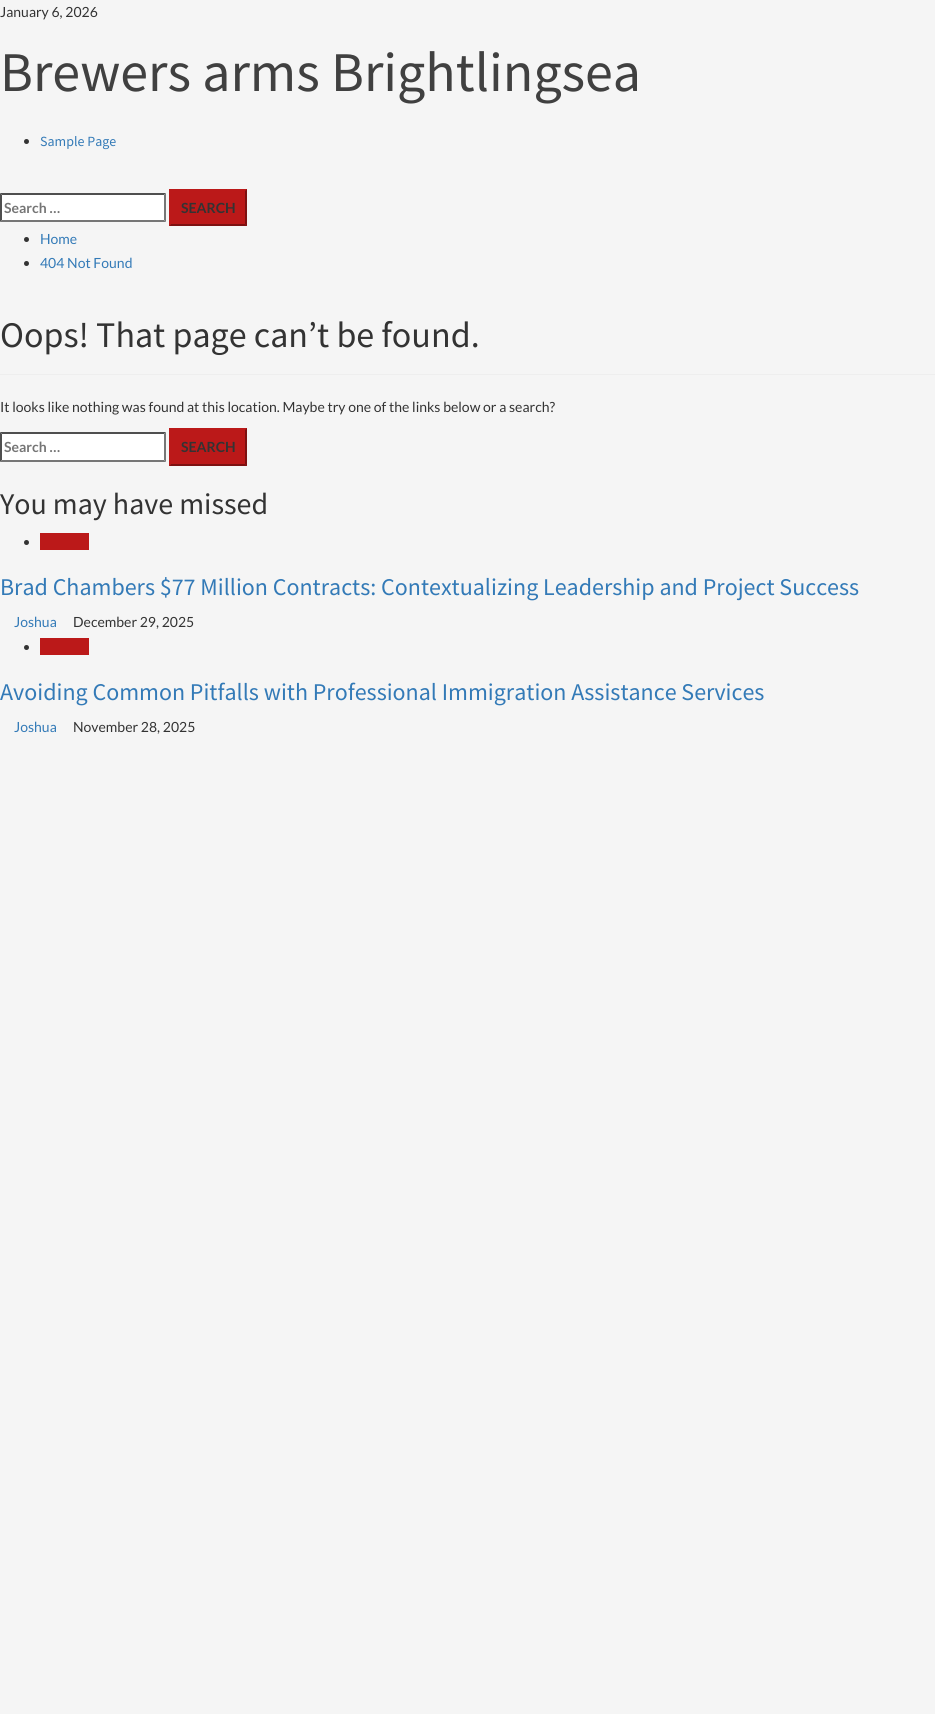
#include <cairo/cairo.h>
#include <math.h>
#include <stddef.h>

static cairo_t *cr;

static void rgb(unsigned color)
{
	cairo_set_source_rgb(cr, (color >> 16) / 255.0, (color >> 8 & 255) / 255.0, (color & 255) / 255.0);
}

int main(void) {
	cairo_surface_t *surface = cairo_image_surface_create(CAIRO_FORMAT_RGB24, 935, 1714);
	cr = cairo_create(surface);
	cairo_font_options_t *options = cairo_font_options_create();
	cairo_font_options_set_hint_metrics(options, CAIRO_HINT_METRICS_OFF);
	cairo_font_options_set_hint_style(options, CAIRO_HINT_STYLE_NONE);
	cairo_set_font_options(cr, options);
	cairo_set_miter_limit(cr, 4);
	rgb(0xf5f5f5);
	cairo_paint(cr);
	rgb(0x333333);
	cairo_arc(cr, 26.5, 141.5, 2.5, 0, 2 * M_PI);
	cairo_fill(cr);
	rgb(0xffffff);
	cairo_rectangle(cr, 0, 193, 166, 29);
	cairo_fill(cr);
	rgb(0x4f4f4f);
	cairo_new_path(cr);
	cairo_move_to(cr, 0, 193);
	cairo_line_to(cr, 166, 193);
	cairo_line_to(cr, 164, 195);
	cairo_line_to(cr, 2, 195);
	cairo_close_path(cr);
	cairo_fill(cr);
	rgb(0x767676);
	cairo_new_path(cr);
	cairo_move_to(cr, 166, 193);
	cairo_line_to(cr, 166, 222);
	cairo_line_to(cr, 164, 220);
	cairo_line_to(cr, 164, 195);
	cairo_close_path(cr);
	cairo_fill(cr);
	cairo_new_path(cr);
	cairo_move_to(cr, 166, 222);
	cairo_line_to(cr, 0, 222);
	cairo_line_to(cr, 2, 220);
	cairo_line_to(cr, 164, 220);
	cairo_close_path(cr);
	cairo_fill(cr);
	rgb(0x4f4f4f);
	cairo_new_path(cr);
	cairo_move_to(cr, 0, 222);
	cairo_line_to(cr, 0, 193);
	cairo_line_to(cr, 2, 195);
	cairo_line_to(cr, 2, 220);
	cairo_close_path(cr);
	cairo_fill(cr);
	rgb(0xbb1919);
	cairo_rectangle(cr, 169, 189, 78, 37);
	cairo_fill(cr);
	rgb(0x7d1111);
	cairo_new_path(cr);
	cairo_move_to(cr, 247, 189);
	cairo_line_to(cr, 247, 226);
	cairo_line_to(cr, 245, 224);
	cairo_line_to(cr, 245, 191);
	cairo_close_path(cr);
	cairo_fill(cr);
	cairo_new_path(cr);
	cairo_move_to(cr, 247, 226);
	cairo_line_to(cr, 169, 226);
	cairo_line_to(cr, 171, 224);
	cairo_line_to(cr, 245, 224);
	cairo_close_path(cr);
	cairo_fill(cr);
	rgb(0xbb1919);
	cairo_new_path(cr);
	cairo_move_to(cr, 169, 226);
	cairo_line_to(cr, 169, 189);
	cairo_line_to(cr, 171, 191);
	cairo_line_to(cr, 171, 224);
	cairo_close_path(cr);
	cairo_fill(cr);
	rgb(0x333333);
	cairo_arc(cr, 26.5, 239.5, 2.5, 0, 2 * M_PI);
	cairo_fill(cr);
	cairo_arc(cr, 26.5, 263.5, 2.5, 0, 2 * M_PI);
	cairo_fill(cr);
	rgb(0xeeeeee);
	cairo_rectangle(cr, 0, 374, 935, 1);
	cairo_fill(cr);
	rgb(0xffffff);
	cairo_rectangle(cr, 0, 432, 166, 30);
	cairo_fill(cr);
	rgb(0x4f4f4f);
	cairo_new_path(cr);
	cairo_move_to(cr, 0, 432);
	cairo_line_to(cr, 166, 432);
	cairo_line_to(cr, 164, 434);
	cairo_line_to(cr, 2, 434);
	cairo_close_path(cr);
	cairo_fill(cr);
	rgb(0x767676);
	cairo_new_path(cr);
	cairo_move_to(cr, 166, 432);
	cairo_line_to(cr, 166, 462);
	cairo_line_to(cr, 164, 460);
	cairo_line_to(cr, 164, 434);
	cairo_close_path(cr);
	cairo_fill(cr);
	cairo_new_path(cr);
	cairo_move_to(cr, 166, 462);
	cairo_line_to(cr, 0, 462);
	cairo_line_to(cr, 2, 460);
	cairo_line_to(cr, 164, 460);
	cairo_close_path(cr);
	cairo_fill(cr);
	rgb(0x4f4f4f);
	cairo_new_path(cr);
	cairo_move_to(cr, 0, 462);
	cairo_line_to(cr, 0, 432);
	cairo_line_to(cr, 2, 434);
	cairo_line_to(cr, 2, 460);
	cairo_close_path(cr);
	cairo_fill(cr);
	rgb(0xbb1919);
	cairo_rectangle(cr, 169, 428, 78, 38);
	cairo_fill(cr);
	rgb(0x7d1111);
	cairo_new_path(cr);
	cairo_move_to(cr, 247, 428);
	cairo_line_to(cr, 247, 466);
	cairo_line_to(cr, 245, 464);
	cairo_line_to(cr, 245, 430);
	cairo_close_path(cr);
	cairo_fill(cr);
	cairo_new_path(cr);
	cairo_move_to(cr, 247, 466);
	cairo_line_to(cr, 169, 466);
	cairo_line_to(cr, 171, 464);
	cairo_line_to(cr, 245, 464);
	cairo_close_path(cr);
	cairo_fill(cr);
	rgb(0xbb1919);
	cairo_new_path(cr);
	cairo_move_to(cr, 169, 466);
	cairo_line_to(cr, 169, 428);
	cairo_line_to(cr, 171, 430);
	cairo_line_to(cr, 171, 464);
	cairo_close_path(cr);
	cairo_fill(cr);
	rgb(0x333333);
	cairo_arc(cr, 26.5, 542.5, 2.5, 0, 2 * M_PI);
	cairo_fill(cr);
	rgb(0xbb1919);
	cairo_rectangle(cr, 40, 533, 49, 17);
	cairo_fill(cr);
	rgb(0x333333);
	cairo_arc(cr, 26.5, 647.5, 2.5, 0, 2 * M_PI);
	cairo_fill(cr);
	rgb(0xbb1919);
	cairo_rectangle(cr, 40, 638, 49, 17);
	cairo_fill(cr);
	cairo_select_font_face(cr, "Lato", CAIRO_FONT_SLANT_NORMAL, CAIRO_FONT_WEIGHT_NORMAL);
	cairo_set_font_size(cr, 14);
	rgb(0x333333);
	cairo_move_to(cr, 0, 17);
	cairo_show_text(cr, "January 6, 2026");
	cairo_select_font_face(cr, "Source Sans Pro", CAIRO_FONT_SLANT_NORMAL, CAIRO_FONT_WEIGHT_NORMAL);
	cairo_set_font_size(cr, 56);
	rgb(0x404040);
	cairo_move_to(cr, 0, 91);
	cairo_show_text(cr, "Brewers arms Brightlingsea");
	cairo_set_font_size(cr, 14);
	rgb(0x337ab7);
	cairo_move_to(cr, 40, 146);
	cairo_show_text(cr, "Sample Page");
	cairo_select_font_face(cr, "Lato", CAIRO_FONT_SLANT_NORMAL, CAIRO_FONT_WEIGHT_BOLD);
	rgb(0x757575);
	cairo_move_to(cr, 4, 213);
	cairo_show_text(cr, "Search …");
	rgb(0x333333);
	cairo_move_to(cr, 181, 213);
	cairo_show_text(cr, "SEARCH");
	cairo_select_font_face(cr, "Lato", CAIRO_FONT_SLANT_NORMAL, CAIRO_FONT_WEIGHT_NORMAL);
	rgb(0x337ab7);
	cairo_move_to(cr, 40, 244);
	cairo_show_text(cr, "Home");
	cairo_move_to(cr, 40, 268);
	cairo_show_text(cr, "404 Not Found");
	cairo_select_font_face(cr, "Source Sans Pro", CAIRO_FONT_SLANT_NORMAL, CAIRO_FONT_WEIGHT_NORMAL);
	cairo_set_font_size(cr, 36);
	rgb(0x333333);
	cairo_move_to(cr, 0, 347);
	cairo_show_text(cr, "Oops! That page can’t be found.");
	cairo_select_font_face(cr, "Lato", CAIRO_FONT_SLANT_NORMAL, CAIRO_FONT_WEIGHT_NORMAL);
	cairo_set_font_size(cr, 14);
	cairo_move_to(cr, 0, 412);
	cairo_show_text(cr, "It looks like nothing was found at this location. Maybe try one of the links below or a search?");
	cairo_select_font_face(cr, "Lato", CAIRO_FONT_SLANT_NORMAL, CAIRO_FONT_WEIGHT_BOLD);
	rgb(0x757575);
	cairo_move_to(cr, 4, 452);
	cairo_show_text(cr, "Search …");
	rgb(0x333333);
	cairo_move_to(cr, 181, 452);
	cairo_show_text(cr, "SEARCH");
	cairo_select_font_face(cr, "Source Sans Pro", CAIRO_FONT_SLANT_NORMAL, CAIRO_FONT_WEIGHT_NORMAL);
	cairo_set_font_size(cr, 30);
	cairo_move_to(cr, 0, 514);
	cairo_show_text(cr, "You may have missed");
	cairo_set_font_size(cr, 24);
	rgb(0x337ab7);
	cairo_move_to(cr, 0, 595);
	cairo_show_text(cr, "Brad Chambers $77 Million Contracts: Contextualizing Leadership and Project Success");
	cairo_select_font_face(cr, "Lato", CAIRO_FONT_SLANT_NORMAL, CAIRO_FONT_WEIGHT_NORMAL);
	cairo_set_font_size(cr, 14);
	cairo_move_to(cr, 14, 627);
	cairo_show_text(cr, "Joshua");
	rgb(0x333333);
	cairo_move_to(cr, 73, 627);
	cairo_show_text(cr, "December 29, 2025");
	cairo_select_font_face(cr, "Source Sans Pro", CAIRO_FONT_SLANT_NORMAL, CAIRO_FONT_WEIGHT_NORMAL);
	cairo_set_font_size(cr, 24);
	rgb(0x337ab7);
	cairo_move_to(cr, 0, 700);
	cairo_show_text(cr, "Avoiding Common Pitfalls with Professional Immigration Assistance Services");
	cairo_select_font_face(cr, "Lato", CAIRO_FONT_SLANT_NORMAL, CAIRO_FONT_WEIGHT_NORMAL);
	cairo_set_font_size(cr, 14);
	cairo_move_to(cr, 14, 732);
	cairo_show_text(cr, "Joshua");
	rgb(0x333333);
	cairo_move_to(cr, 73, 732);
	cairo_show_text(cr, "November 28, 2025");
	cairo_surface_write_to_png(surface, "page.png");
	cairo_font_options_destroy(options);
	cairo_destroy(cr);
	cairo_surface_destroy(surface);
	return 0;
}
